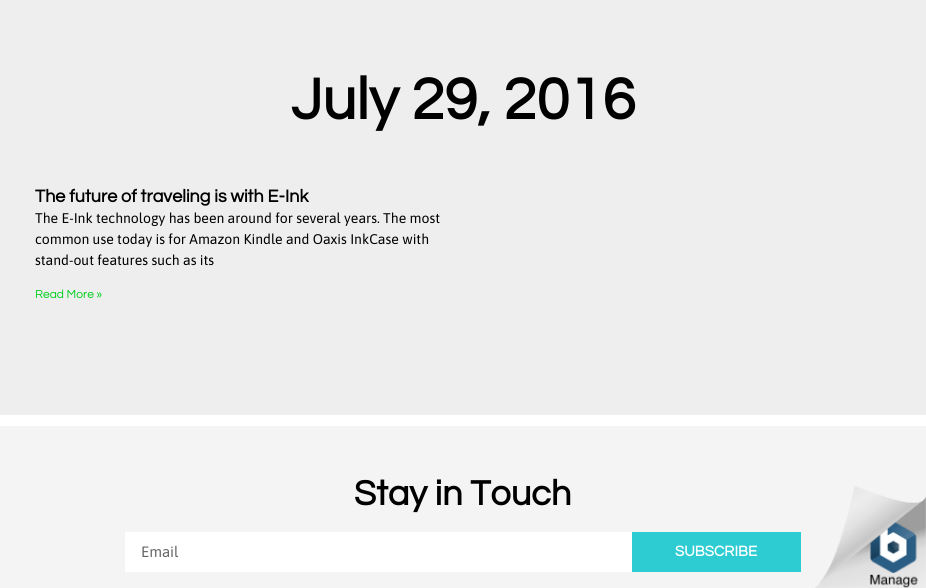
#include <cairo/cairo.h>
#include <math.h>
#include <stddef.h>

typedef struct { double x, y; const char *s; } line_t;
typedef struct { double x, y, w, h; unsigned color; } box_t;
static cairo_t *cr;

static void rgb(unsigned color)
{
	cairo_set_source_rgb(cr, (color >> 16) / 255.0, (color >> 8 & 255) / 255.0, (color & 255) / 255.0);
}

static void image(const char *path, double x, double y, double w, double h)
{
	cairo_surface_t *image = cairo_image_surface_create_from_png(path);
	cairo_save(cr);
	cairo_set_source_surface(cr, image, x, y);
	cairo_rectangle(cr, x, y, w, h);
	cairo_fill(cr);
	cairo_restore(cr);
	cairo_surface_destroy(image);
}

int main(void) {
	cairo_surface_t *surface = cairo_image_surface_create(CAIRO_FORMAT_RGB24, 926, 588);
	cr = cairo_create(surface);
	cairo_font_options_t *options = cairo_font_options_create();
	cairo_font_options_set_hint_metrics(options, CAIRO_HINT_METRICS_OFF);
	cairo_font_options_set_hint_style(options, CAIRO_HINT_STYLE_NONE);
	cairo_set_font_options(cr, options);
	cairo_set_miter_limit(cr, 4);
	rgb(0xffffff);
	cairo_paint(cr);
	{
		static const box_t items[] = {
			{0, 0, 926, 415, 0xeeeeee},
			{0, 426, 926, 162, 0xf4f4f4},
			{125, 532, 507, 40, 0xffffff},
			{632, 532, 169, 40, 0x2dccd3},
		};
		for (size_t i = 0; i < sizeof items / sizeof *items; i++) {
			rgb(items[i].color);
			cairo_rectangle(cr, items[i].x, items[i].y, items[i].w, items[i].h);
			cairo_fill(cr);
		}
	}
	image("img/1.png", 815, 486, 111, 102);
	cairo_select_font_face(cr, "Questrial", CAIRO_FONT_SLANT_NORMAL, CAIRO_FONT_WEIGHT_BOLD);
	cairo_set_font_size(cr, 60);
	rgb(0x000000);
	cairo_move_to(cr, 291, 119);
	cairo_show_text(cr, "July 29, 2016");
	cairo_set_font_size(cr, 18);
	cairo_move_to(cr, 35, 202);
	cairo_show_text(cr, "The future of traveling is with E-Ink");
	cairo_select_font_face(cr, "Asap", CAIRO_FONT_SLANT_NORMAL, CAIRO_FONT_WEIGHT_NORMAL);
	cairo_set_font_size(cr, 14);
	{
		static const line_t items[] = {
			{35, 223, "The E-Ink technology has been around for several years. The most"},
			{35, 244, "common use today is for Amazon Kindle and Oaxis InkCase with"},
			{35, 265, "stand-out features such as its"},
		};
		for (size_t i = 0; i < sizeof items / sizeof *items; i++) {
			cairo_move_to(cr, items[i].x, items[i].y);
			cairo_show_text(cr, items[i].s);
		}
	}
	cairo_select_font_face(cr, "Questrial", CAIRO_FONT_SLANT_NORMAL, CAIRO_FONT_WEIGHT_NORMAL);
	cairo_set_font_size(cr, 12);
	rgb(0x00ce1b);
	cairo_move_to(cr, 35, 298);
	cairo_show_text(cr, "Read More »");
	cairo_select_font_face(cr, "Questrial", CAIRO_FONT_SLANT_NORMAL, CAIRO_FONT_WEIGHT_BOLD);
	cairo_set_font_size(cr, 36);
	rgb(0x000000);
	cairo_move_to(cr, 354, 505);
	cairo_show_text(cr, "Stay in Touch");
	cairo_select_font_face(cr, "Asap", CAIRO_FONT_SLANT_NORMAL, CAIRO_FONT_WEIGHT_NORMAL);
	cairo_set_font_size(cr, 15);
	rgb(0x666666);
	cairo_move_to(cr, 141, 557);
	cairo_show_text(cr, "Email");
	cairo_select_font_face(cr, "Questrial", CAIRO_FONT_SLANT_NORMAL, CAIRO_FONT_WEIGHT_BOLD);
	rgb(0xffffff);
	cairo_move_to(cr, 675, 556);
	cairo_show_text(cr, "SUBSCRIBE");
	cairo_surface_write_to_png(surface, "page.png");
	cairo_font_options_destroy(options);
	cairo_destroy(cr);
	cairo_surface_destroy(surface);
	return 0;
}
